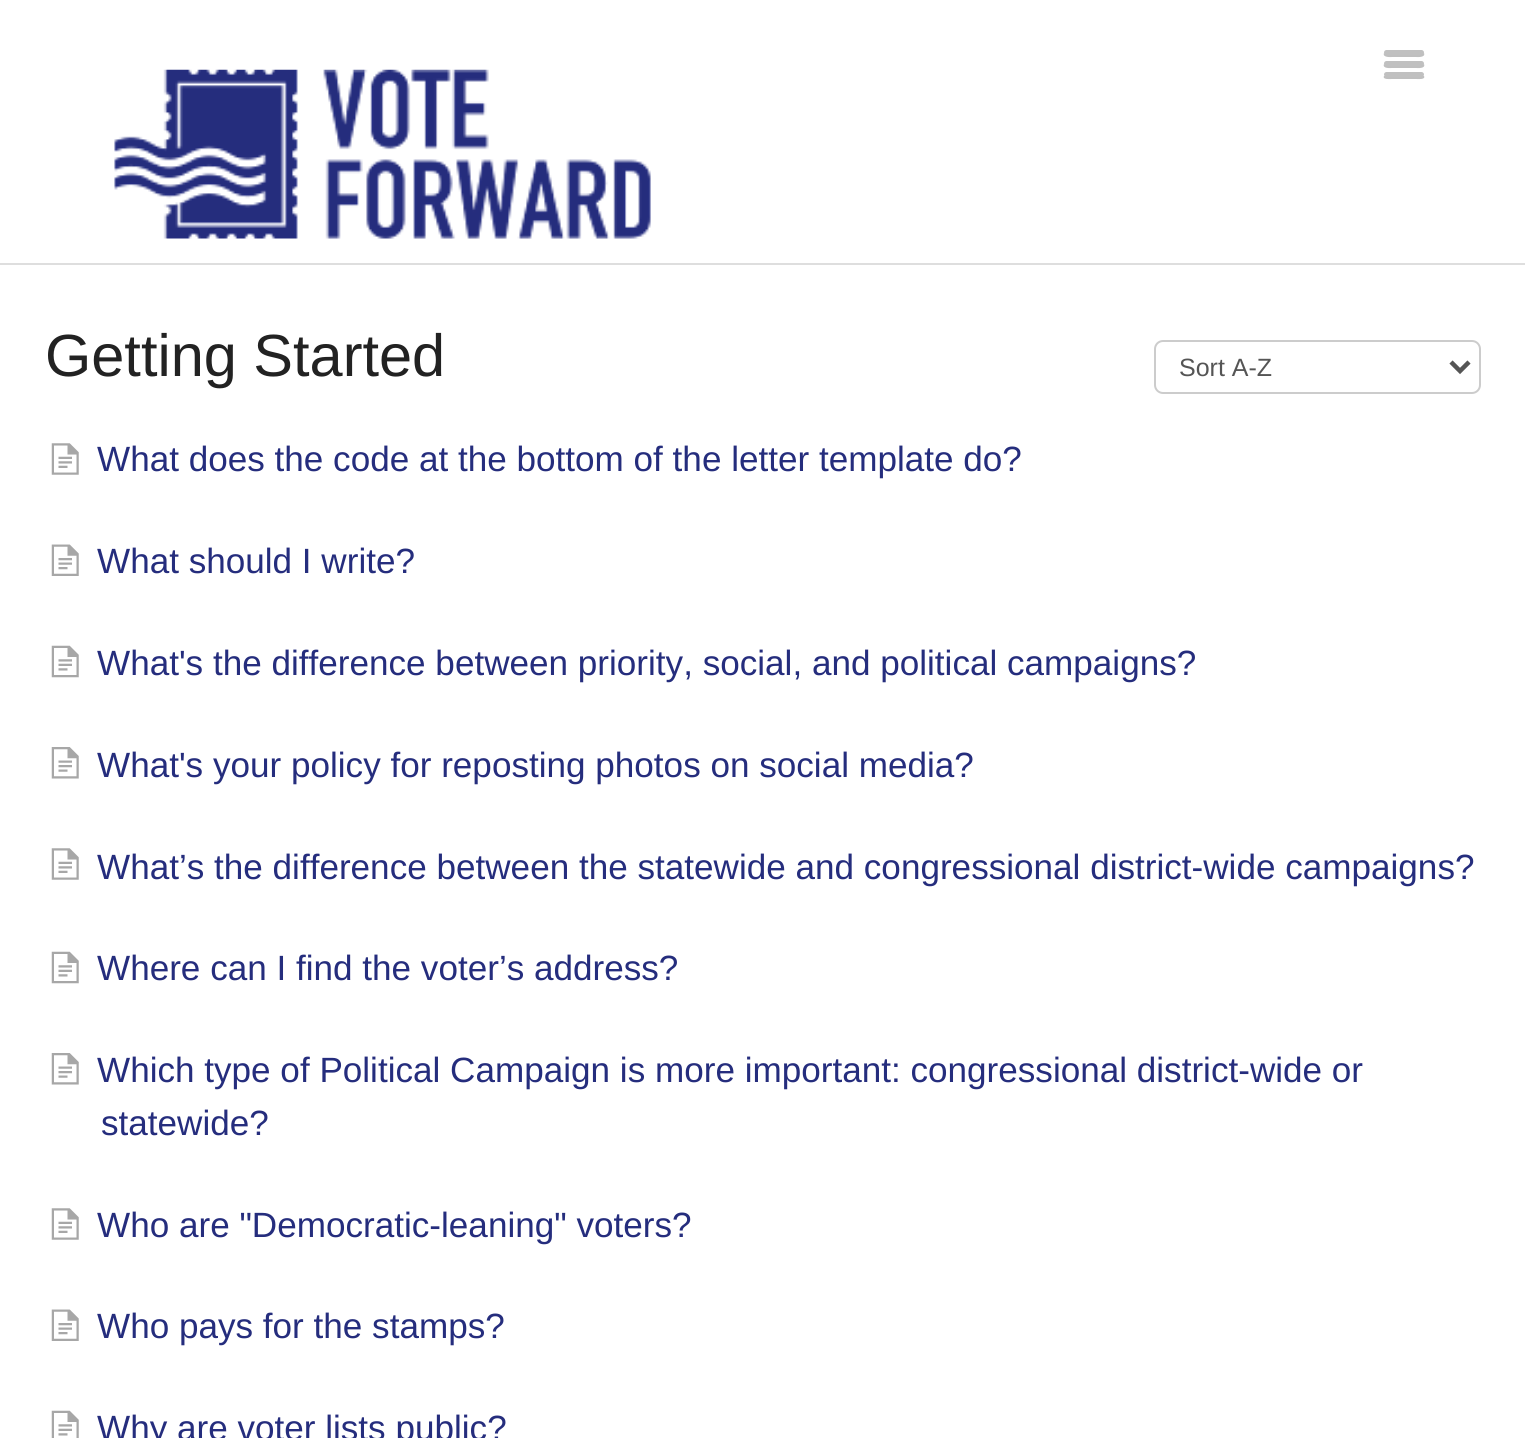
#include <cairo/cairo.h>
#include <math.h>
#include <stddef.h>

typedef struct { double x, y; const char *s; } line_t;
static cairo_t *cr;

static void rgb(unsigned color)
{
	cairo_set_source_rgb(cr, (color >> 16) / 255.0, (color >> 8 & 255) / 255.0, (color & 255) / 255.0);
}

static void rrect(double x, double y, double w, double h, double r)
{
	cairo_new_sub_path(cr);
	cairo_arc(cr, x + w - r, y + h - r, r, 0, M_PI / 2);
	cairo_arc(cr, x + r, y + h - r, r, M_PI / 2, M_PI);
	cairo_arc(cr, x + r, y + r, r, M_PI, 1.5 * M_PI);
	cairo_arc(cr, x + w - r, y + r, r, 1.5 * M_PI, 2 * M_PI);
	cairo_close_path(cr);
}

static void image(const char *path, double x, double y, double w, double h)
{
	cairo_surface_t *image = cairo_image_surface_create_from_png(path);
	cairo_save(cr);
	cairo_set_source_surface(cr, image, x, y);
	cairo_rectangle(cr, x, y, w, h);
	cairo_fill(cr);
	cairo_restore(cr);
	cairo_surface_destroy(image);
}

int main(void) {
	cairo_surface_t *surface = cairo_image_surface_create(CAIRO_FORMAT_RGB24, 1525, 1438);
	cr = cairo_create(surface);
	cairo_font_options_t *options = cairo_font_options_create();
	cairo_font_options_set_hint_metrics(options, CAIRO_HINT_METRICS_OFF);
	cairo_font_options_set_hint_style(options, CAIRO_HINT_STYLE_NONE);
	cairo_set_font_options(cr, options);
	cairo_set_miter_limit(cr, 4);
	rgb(0xffffff);
	cairo_paint(cr);
	rgb(0xbfbfbf);
	cairo_new_path(cr);
	cairo_move_to(cr, 1384, 53);
	cairo_curve_to(cr, 1382, 58, 1392, 57, 1392, 57);
	cairo_line_to(cr, 1416, 57);
	cairo_curve_to(cr, 1416, 57, 1426, 58, 1424, 53);
	cairo_curve_to(cr, 1422, 55, 1386, 55, 1384, 53);
	cairo_close_path(cr);
	cairo_fill(cr);
	rgb(0xc0c0c0);
	rrect(1384, 50, 40, 5, 2.5);
	cairo_fill(cr);
	rgb(0xbfbfbf);
	cairo_new_path(cr);
	cairo_move_to(cr, 1384, 64);
	cairo_curve_to(cr, 1382, 69, 1391, 68, 1392, 68);
	cairo_line_to(cr, 1416, 68);
	cairo_curve_to(cr, 1417, 68, 1426, 69, 1424, 64);
	cairo_line_to(cr, 1422, 65);
	cairo_line_to(cr, 1386, 65);
	cairo_close_path(cr);
	cairo_fill(cr);
	rgb(0xc0c0c0);
	rrect(1384, 61, 40, 5, 2.5);
	cairo_fill(cr);
	rgb(0xbfbfbf);
	cairo_new_path(cr);
	cairo_move_to(cr, 1384, 76);
	cairo_curve_to(cr, 1382, 80, 1391, 79, 1392, 79);
	cairo_line_to(cr, 1416, 79);
	cairo_curve_to(cr, 1417, 79, 1426, 80, 1424, 76);
	cairo_line_to(cr, 1422, 76);
	cairo_line_to(cr, 1386, 76);
	cairo_close_path(cr);
	cairo_fill(cr);
	rgb(0xc0c0c0);
	rrect(1384, 72, 40, 5, 2.5);
	cairo_fill(cr);
	image("img/1.png", 114, 69, 537, 170);
	rgb(0xdedede);
	cairo_rectangle(cr, 0, 263, 1525, 2);
	cairo_fill(cr);
	rrect(1155, 341, 325, 52, 8);
	rgb(0xcccccc);
	cairo_stroke(cr);
	cairo_new_path(cr);
	cairo_move_to(cr, 1451, 362);
	cairo_line_to(cr, 1460, 371);
	cairo_line_to(cr, 1469, 362);
	rgb(0x555555);
	cairo_set_line_width(cr, 4.5);
	cairo_stroke(cr);
	image("img/2.png", 51, 443, 28, 32);
	image("img/3.png", 51, 544, 28, 32);
	image("img/4.png", 51, 645, 28, 33);
	image("img/5.png", 51, 747, 28, 32);
	image("img/2.png", 51, 848, 28, 32);
	image("img/4.png", 51, 951, 28, 33);
	image("img/5.png", 51, 1053, 28, 32);
	image("img/2.png", 51, 1208, 28, 32);
	image("img/3.png", 51, 1309, 28, 32);
	image("img/6.png", 51, 1410, 28, 28);
	cairo_select_font_face(cr, "Liberation Sans", CAIRO_FONT_SLANT_NORMAL, CAIRO_FONT_WEIGHT_NORMAL);
	cairo_set_font_size(cr, 59.5);
	rgb(0x222222);
	cairo_move_to(cr, 45, 376);
	cairo_show_text(cr, "Getting Started");
	cairo_set_font_size(cr, 25);
	rgb(0x555555);
	cairo_move_to(cr, 1179, 376);
	cairo_show_text(cr, "Sort A-Z");
	cairo_set_font_size(cr, 35.1);
	rgb(0x252d7d);
	{
		static const line_t items[] = {
			{97, 471, "What does the code at the bottom of the letter template do?"},
			{97, 573, "What should I write?"},
			{97, 675, "What's the difference between priority, social, and political campaigns?"},
			{97, 777, "What's your policy for reposting photos on social media?"},
			{97, 879, "What’s the difference between the statewide and congressional district-wide campaigns?"},
			{97, 980, "Where can I find the voter’s address?"},
			{97, 1082, "Which type of Political Campaign is more important: congressional district-wide or"},
			{101, 1135, "statewide?"},
			{97, 1237, "Who are \"Democratic-leaning\" voters?"},
			{97, 1338, "Who pays for the stamps?"},
			{97, 1440, "Why are voter lists public?"},
		};
		for (size_t i = 0; i < sizeof items / sizeof *items; i++) {
			cairo_move_to(cr, items[i].x, items[i].y);
			cairo_show_text(cr, items[i].s);
		}
	}
	cairo_surface_write_to_png(surface, "page.png");
	cairo_font_options_destroy(options);
	cairo_destroy(cr);
	cairo_surface_destroy(surface);
	return 0;
}
